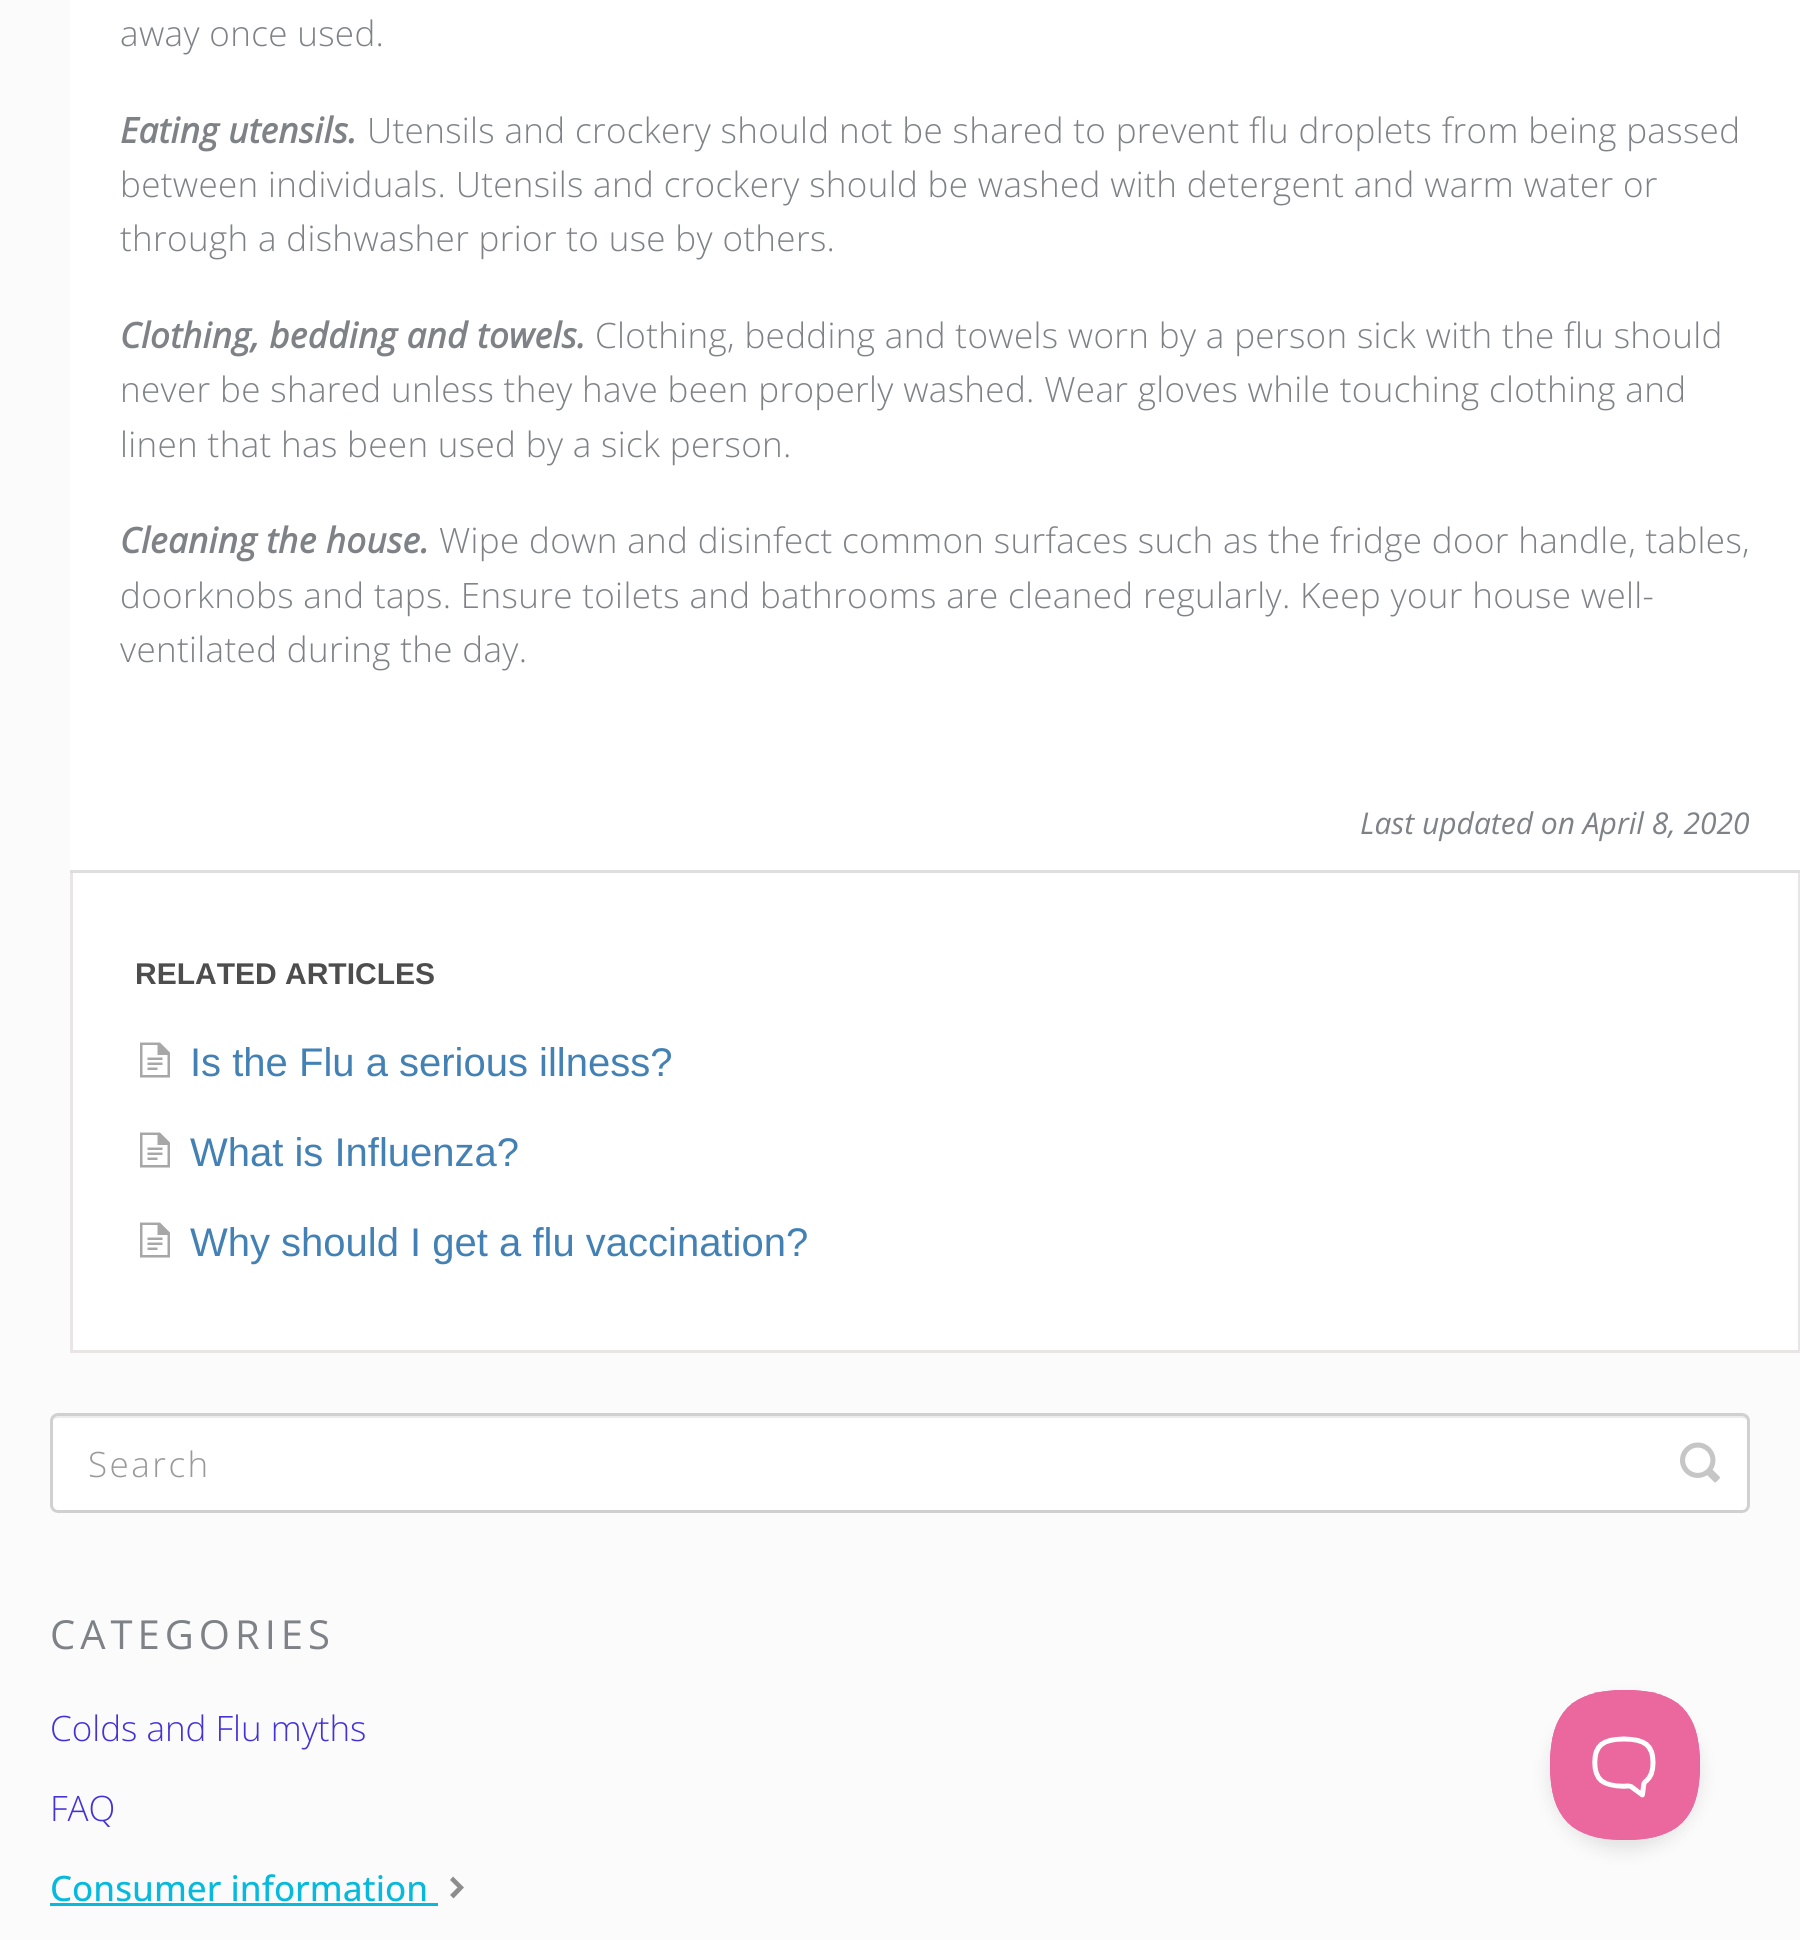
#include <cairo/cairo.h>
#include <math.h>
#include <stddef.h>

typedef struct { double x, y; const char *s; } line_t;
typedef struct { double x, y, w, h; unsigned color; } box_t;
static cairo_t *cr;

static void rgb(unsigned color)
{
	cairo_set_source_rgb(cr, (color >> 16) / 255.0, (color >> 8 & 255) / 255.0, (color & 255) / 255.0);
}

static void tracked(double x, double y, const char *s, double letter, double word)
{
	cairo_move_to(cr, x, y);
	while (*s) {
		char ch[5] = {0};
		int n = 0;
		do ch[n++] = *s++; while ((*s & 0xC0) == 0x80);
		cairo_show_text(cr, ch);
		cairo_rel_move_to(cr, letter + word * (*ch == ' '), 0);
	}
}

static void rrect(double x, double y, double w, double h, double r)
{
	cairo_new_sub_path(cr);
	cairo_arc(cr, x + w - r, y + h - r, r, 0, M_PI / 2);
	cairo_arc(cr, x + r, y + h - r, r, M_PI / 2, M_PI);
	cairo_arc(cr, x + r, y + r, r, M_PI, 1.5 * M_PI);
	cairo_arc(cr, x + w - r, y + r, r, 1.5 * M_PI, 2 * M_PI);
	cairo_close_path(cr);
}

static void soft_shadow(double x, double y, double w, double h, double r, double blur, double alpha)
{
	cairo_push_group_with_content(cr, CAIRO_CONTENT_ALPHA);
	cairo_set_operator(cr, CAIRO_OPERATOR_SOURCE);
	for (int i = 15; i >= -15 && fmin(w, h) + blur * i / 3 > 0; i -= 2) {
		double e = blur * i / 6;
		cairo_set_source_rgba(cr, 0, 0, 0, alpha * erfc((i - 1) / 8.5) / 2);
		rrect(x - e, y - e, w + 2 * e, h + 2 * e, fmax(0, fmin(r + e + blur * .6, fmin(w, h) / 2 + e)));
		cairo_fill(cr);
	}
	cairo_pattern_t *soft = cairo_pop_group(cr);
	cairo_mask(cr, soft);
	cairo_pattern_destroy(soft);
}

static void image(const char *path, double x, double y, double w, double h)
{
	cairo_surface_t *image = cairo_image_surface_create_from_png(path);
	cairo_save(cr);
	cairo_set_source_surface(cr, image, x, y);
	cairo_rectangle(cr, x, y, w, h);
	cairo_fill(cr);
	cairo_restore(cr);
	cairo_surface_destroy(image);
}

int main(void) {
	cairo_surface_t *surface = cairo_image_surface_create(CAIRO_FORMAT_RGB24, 1800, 1940);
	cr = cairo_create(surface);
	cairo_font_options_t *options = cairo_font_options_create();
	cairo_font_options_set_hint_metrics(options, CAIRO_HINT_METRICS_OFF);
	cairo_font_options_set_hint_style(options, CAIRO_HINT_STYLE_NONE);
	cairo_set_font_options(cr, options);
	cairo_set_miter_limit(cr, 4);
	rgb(0xfbfbfc);
	cairo_paint(cr);
	{
		static const box_t items[] = {
			{70, 0, 1730, 870, 0xffffff},
			{70, 870, 1730, 3, 0xdedede},
			{73, 873, 1725, 477, 0xffffff},
			{1798, 873, 2, 480, 0xe9e5e5},
			{70, 1350, 1730, 3, 0xe9e5e5},
			{70, 873, 3, 480, 0xe9e5e5},
		};
		for (size_t i = 0; i < sizeof items / sizeof *items; i++) {
			rgb(items[i].color);
			cairo_rectangle(cr, items[i].x, items[i].y, items[i].w, items[i].h);
			cairo_fill(cr);
		}
	}
	image("img/1.png", 140, 1042, 30, 36);
	image("img/1.png", 140, 1132, 30, 36);
	image("img/1.png", 140, 1222, 30, 36);
	rgb(0xffffff);
	rrect(50, 1413, 1700, 100, 8);
	cairo_fill(cr);
	rgb(0xececec);
	cairo_new_path(cr);
	cairo_move_to(cr, 58, 1418);
	cairo_line_to(cr, 1742, 1418);
	cairo_curve_to(cr, 1745, 1418, 1748, 1420, 1748, 1422);
	cairo_curve_to(cr, 1748, 1419, 1747, 1415, 1743, 1415);
	cairo_line_to(cr, 58, 1415);
	cairo_curve_to(cr, 55, 1415, 53, 1417, 53, 1420);
	cairo_curve_to(cr, 54, 1419, 56, 1418, 58, 1418);
	cairo_close_path(cr);
	cairo_fill(cr);
	rrect(51.5, 1414.5, 1697, 97, 6.5);
	rgb(0xd0d0d0);
	cairo_set_line_width(cr, 3);
	cairo_stroke(cr);
	image("img/2.png", 1680, 1442, 40, 41);
	rgb(0x06b9dd);
	cairo_rectangle(cr, 50, 1903, 388, 3);
	cairo_fill(cr);
	rgb(0x8d8d8d);
	cairo_new_path(cr);
	cairo_move_to(cr, 453, 1876.5);
	cairo_line_to(cr, 450, 1880);
	cairo_line_to(cr, 457.5, 1887.5);
	cairo_line_to(cr, 450, 1895);
	cairo_line_to(cr, 453.5, 1898.5);
	cairo_line_to(cr, 464, 1887.5);
	cairo_close_path(cr);
	cairo_fill(cr);
	rgb(0x000000);
	soft_shadow(1550, 1700, 150, 150, 75, 9, 0.1);
	image("img/3.png", 1550, 1690, 150, 150);
	cairo_select_font_face(cr, "Open Sans Light", CAIRO_FONT_SLANT_NORMAL, CAIRO_FONT_WEIGHT_NORMAL);
	cairo_set_font_size(cr, 35);
	rgb(0x7e8287);
	tracked(120, 46, "away once used.", 0.35, 0);
	cairo_select_font_face(cr, "Open Sans", CAIRO_FONT_SLANT_ITALIC, CAIRO_FONT_WEIGHT_BOLD);
	tracked(120, 143, "Eating utensils.", 0.35, 0);
	cairo_select_font_face(cr, "Open Sans Light", CAIRO_FONT_SLANT_NORMAL, CAIRO_FONT_WEIGHT_NORMAL);
	{
		static const line_t items[] = {
			{367, 143, "Utensils and crockery should not be shared to prevent flu droplets from being passed"},
			{120, 197, "between individuals. Utensils and crockery should be washed with detergent and warm water or"},
			{120, 251, "through a dishwasher prior to use by others."},
		};
		for (size_t i = 0; i < sizeof items / sizeof *items; i++) {
			tracked(items[i].x, items[i].y, items[i].s, 0.35, 0);
		}
	}
	cairo_select_font_face(cr, "Open Sans", CAIRO_FONT_SLANT_ITALIC, CAIRO_FONT_WEIGHT_BOLD);
	tracked(120, 348, "Clothing, bedding and towels.", 0.35, 0);
	cairo_select_font_face(cr, "Open Sans Light", CAIRO_FONT_SLANT_NORMAL, CAIRO_FONT_WEIGHT_NORMAL);
	{
		static const line_t items[] = {
			{595, 348, "Clothing, bedding and towels worn by a person sick with the flu should"},
			{120, 402, "never be shared unless they have been properly washed. Wear gloves while touching clothing and"},
			{120, 457, "linen that has been used by a sick person."},
		};
		for (size_t i = 0; i < sizeof items / sizeof *items; i++) {
			tracked(items[i].x, items[i].y, items[i].s, 0.35, 0);
		}
	}
	cairo_select_font_face(cr, "Open Sans", CAIRO_FONT_SLANT_ITALIC, CAIRO_FONT_WEIGHT_BOLD);
	tracked(120, 553, "Cleaning the house.", 0.35, 0);
	cairo_select_font_face(cr, "Open Sans Light", CAIRO_FONT_SLANT_NORMAL, CAIRO_FONT_WEIGHT_NORMAL);
	{
		static const line_t items[] = {
			{439, 553, "Wipe down and disinfect common surfaces such as the fridge door handle, tables,"},
			{120, 608, "doorknobs and taps. Ensure toilets and bathrooms are cleaned regularly. Keep your house well-"},
			{120, 662, "ventilated during the day."},
		};
		for (size_t i = 0; i < sizeof items / sizeof *items; i++) {
			tracked(items[i].x, items[i].y, items[i].s, 0.35, 0);
		}
	}
	cairo_select_font_face(cr, "Open Sans", CAIRO_FONT_SLANT_ITALIC, CAIRO_FONT_WEIGHT_NORMAL);
	cairo_set_font_size(cr, 30);
	cairo_move_to(cr, 1360, 834);
	cairo_show_text(cr, "Last updated on April 8, 2020");
	cairo_select_font_face(cr, "Liberation Sans", CAIRO_FONT_SLANT_NORMAL, CAIRO_FONT_WEIGHT_BOLD);
	rgb(0x4d4d4d);
	cairo_move_to(cr, 135, 984);
	cairo_show_text(cr, "RELATED ARTICLES");
	cairo_select_font_face(cr, "Liberation Sans", CAIRO_FONT_SLANT_NORMAL, CAIRO_FONT_WEIGHT_NORMAL);
	cairo_set_font_size(cr, 40);
	rgb(0x4381b5);
	{
		static const line_t items[] = {
			{190, 1076, "Is the Flu a serious illness?"},
			{190, 1166, "What is Influenza?"},
			{190, 1256, "Why should I get a flu vaccination?"},
		};
		for (size_t i = 0; i < sizeof items / sizeof *items; i++) {
			cairo_move_to(cr, items[i].x, items[i].y);
			cairo_show_text(cr, items[i].s);
		}
	}
	cairo_select_font_face(cr, "Open Sans Light", CAIRO_FONT_SLANT_NORMAL, CAIRO_FONT_WEIGHT_NORMAL);
	cairo_set_font_size(cr, 35);
	rgb(0x999999);
	tracked(88, 1477, "Search", 2.5, 0);
	cairo_select_font_face(cr, "Open Sans", CAIRO_FONT_SLANT_NORMAL, CAIRO_FONT_WEIGHT_NORMAL);
	cairo_set_font_size(cr, 40);
	rgb(0x7e8287);
	tracked(50, 1649, "CATEGORIES", 5, 0);
	cairo_select_font_face(cr, "Open Sans Light", CAIRO_FONT_SLANT_NORMAL, CAIRO_FONT_WEIGHT_NORMAL);
	cairo_set_font_size(cr, 35);
	rgb(0x4333d6);
	cairo_move_to(cr, 50, 1741);
	cairo_show_text(cr, "Colds and Flu myths");
	cairo_move_to(cr, 50, 1821);
	cairo_show_text(cr, "FAQ");
	cairo_select_font_face(cr, "Open Sans Medium", CAIRO_FONT_SLANT_NORMAL, CAIRO_FONT_WEIGHT_NORMAL);
	rgb(0x06b9dd);
	cairo_move_to(cr, 50, 1901);
	cairo_show_text(cr, "Consumer information");
	cairo_surface_write_to_png(surface, "page.png");
	cairo_font_options_destroy(options);
	cairo_destroy(cr);
	cairo_surface_destroy(surface);
	return 0;
}
